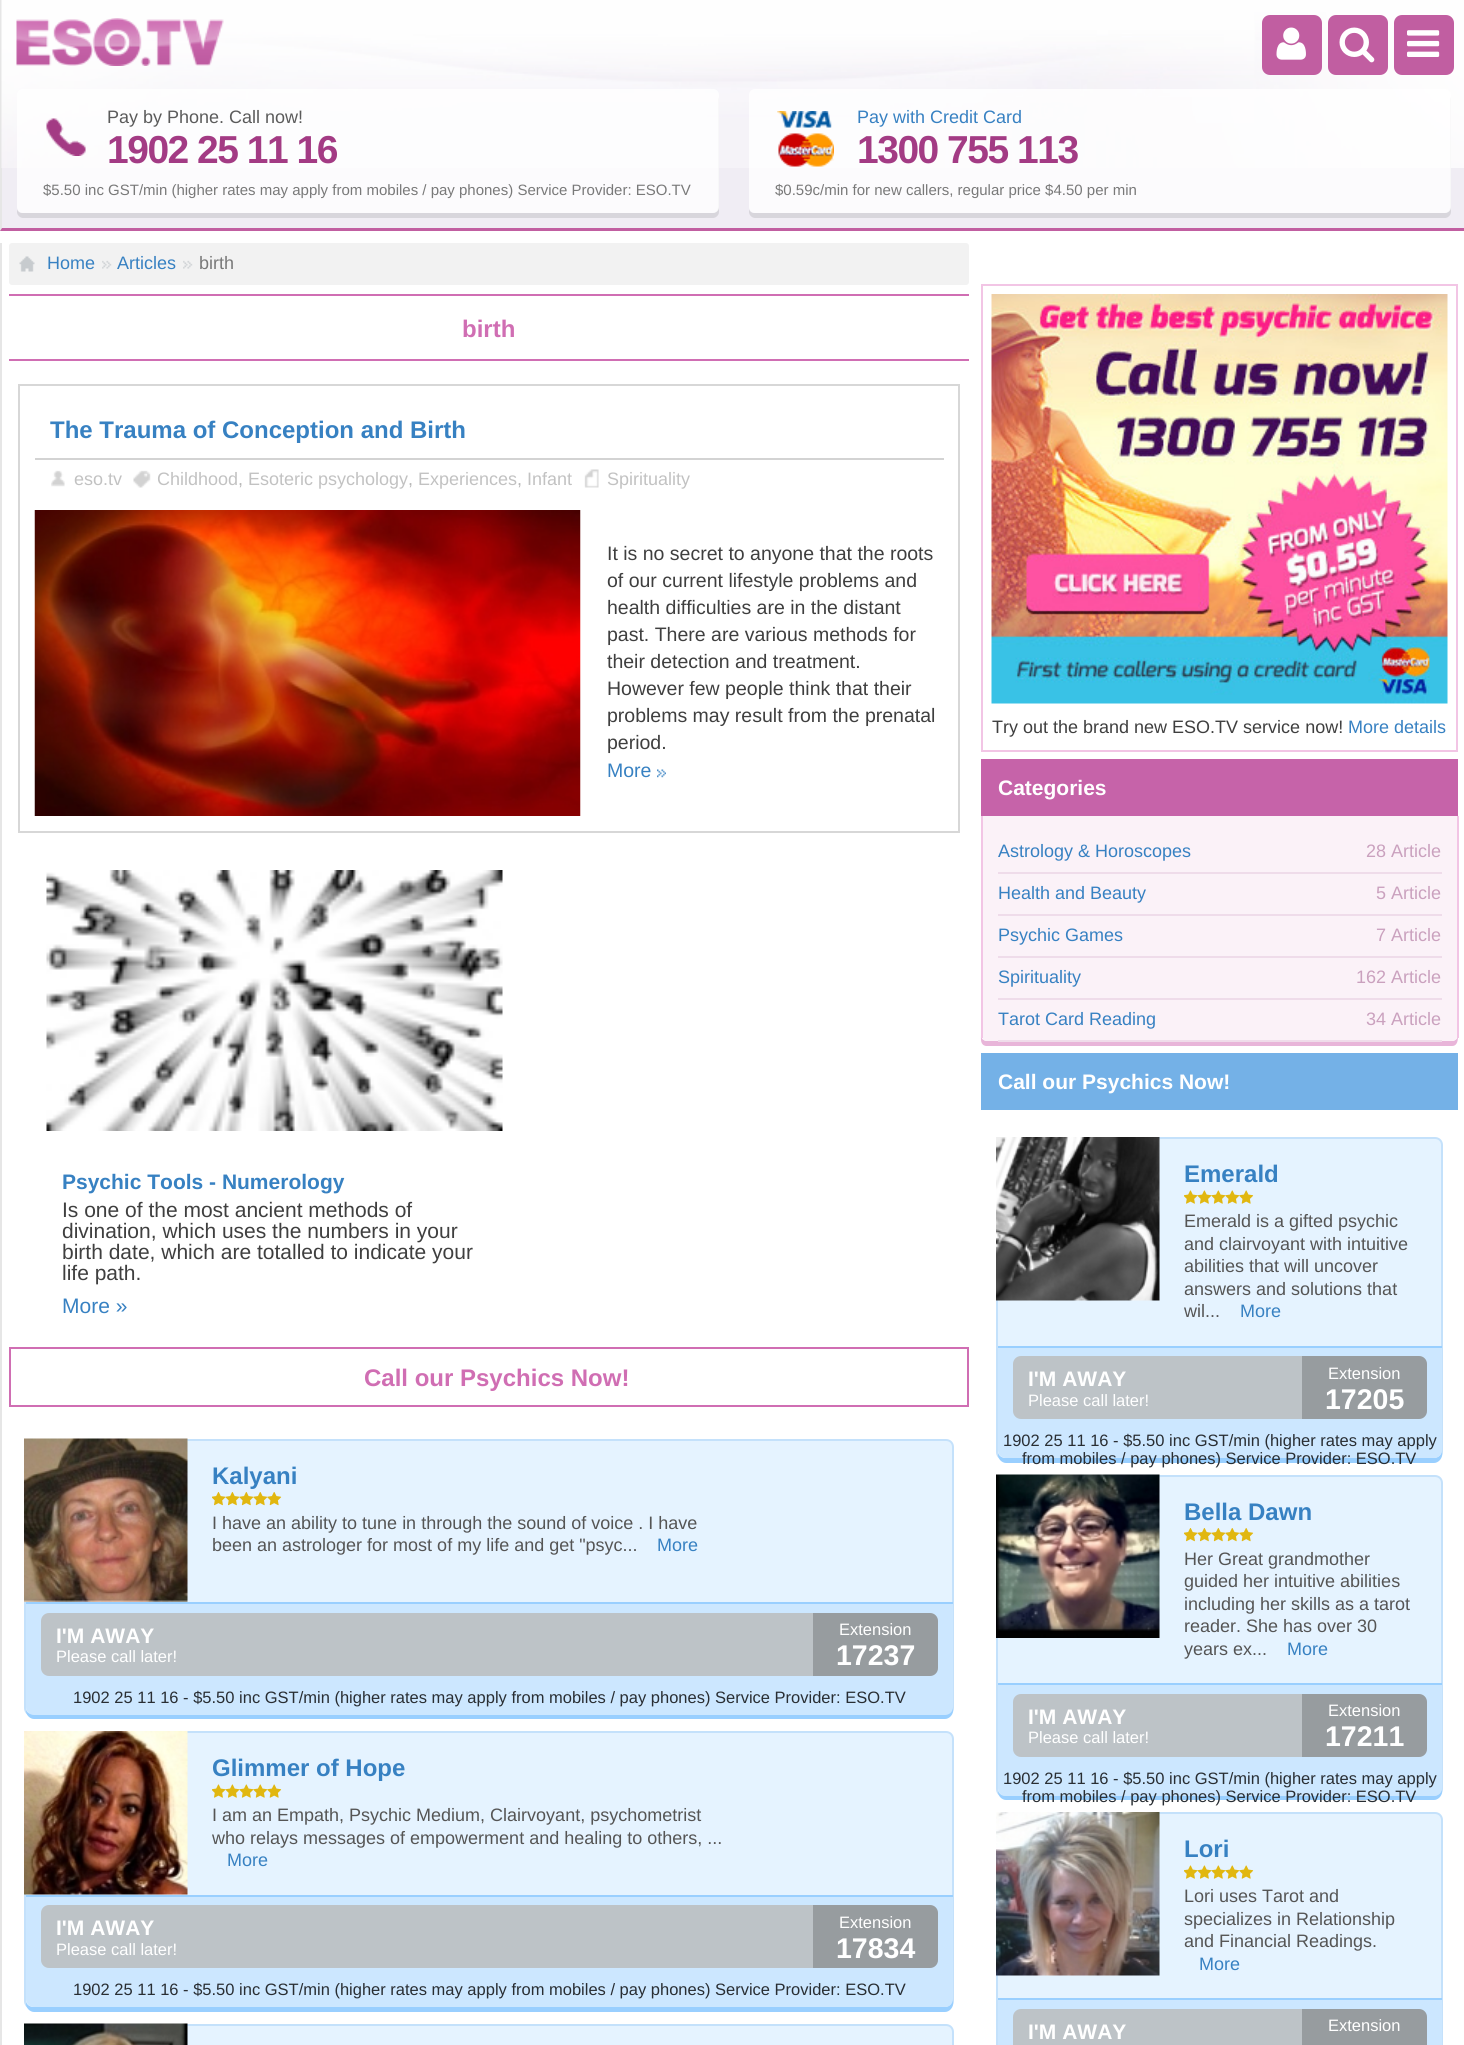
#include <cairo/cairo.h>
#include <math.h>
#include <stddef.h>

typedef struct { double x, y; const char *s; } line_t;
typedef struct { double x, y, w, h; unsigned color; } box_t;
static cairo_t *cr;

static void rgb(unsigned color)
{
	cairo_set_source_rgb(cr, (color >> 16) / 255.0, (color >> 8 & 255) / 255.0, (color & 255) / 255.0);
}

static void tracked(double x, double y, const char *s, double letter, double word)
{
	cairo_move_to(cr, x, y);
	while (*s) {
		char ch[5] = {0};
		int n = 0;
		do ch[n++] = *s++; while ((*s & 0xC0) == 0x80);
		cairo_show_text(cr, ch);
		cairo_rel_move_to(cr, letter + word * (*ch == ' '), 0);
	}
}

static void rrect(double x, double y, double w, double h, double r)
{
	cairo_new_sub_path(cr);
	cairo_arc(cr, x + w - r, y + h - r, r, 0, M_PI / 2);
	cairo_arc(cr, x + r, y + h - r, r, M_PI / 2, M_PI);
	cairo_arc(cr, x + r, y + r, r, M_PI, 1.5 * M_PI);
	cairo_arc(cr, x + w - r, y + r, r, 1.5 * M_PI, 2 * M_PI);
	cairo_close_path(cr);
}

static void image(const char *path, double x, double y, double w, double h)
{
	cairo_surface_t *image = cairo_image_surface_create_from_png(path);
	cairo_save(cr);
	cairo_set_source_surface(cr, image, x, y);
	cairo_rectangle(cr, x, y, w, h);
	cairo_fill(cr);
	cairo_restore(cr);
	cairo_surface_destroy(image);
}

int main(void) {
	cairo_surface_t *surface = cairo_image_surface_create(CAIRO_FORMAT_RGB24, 1464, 2045);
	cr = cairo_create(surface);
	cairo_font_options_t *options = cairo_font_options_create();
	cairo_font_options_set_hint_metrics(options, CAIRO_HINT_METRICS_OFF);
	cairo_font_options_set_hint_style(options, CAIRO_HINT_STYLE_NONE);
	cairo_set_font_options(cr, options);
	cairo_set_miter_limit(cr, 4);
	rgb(0xffffff);
	cairo_paint(cr);
	rgb(0xc15ea1);
	cairo_new_path(cr);
	cairo_move_to(cr, 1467, 231);
	cairo_line_to(cr, 0, 231);
	cairo_line_to(cr, 2, 228);
	cairo_line_to(cr, 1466, 228);
	cairo_close_path(cr);
	cairo_fill(cr);
	cairo_set_source_rgba(cr, 0, 0, 0, 0.1);
	cairo_new_path(cr);
	cairo_move_to(cr, 0, 231);
	cairo_line_to(cr, 0, 0);
	cairo_line_to(cr, 2, 0);
	cairo_line_to(cr, 2, 228);
	cairo_close_path(cr);
	cairo_fill(cr);
	rgb(0xf0edf4);
	cairo_rectangle(cr, 2, 168, 1462, 60);
	cairo_fill(cr);
	image("img/1.png", 1, 0, 1463, 168);
	image("img/2.png", 16, 18, 208, 48);
	rgb(0xc15ea1);
	rrect(1262, 15, 60, 60, 8);
	cairo_fill(cr);
	image("img/3.png", 1276, 27, 30, 33);
	rrect(1328, 15, 60, 60, 8);
	cairo_fill(cr);
	image("img/4.png", 1339, 27, 36, 36);
	rrect(1394, 15, 60, 60, 8);
	cairo_fill(cr);
	image("img/5.png", 1407, 30, 33, 27);
	cairo_set_source_rgba(cr, 0, 0, 0, 0.1);
	cairo_new_path(cr);
	cairo_move_to(cr, 17, 209);
	cairo_line_to(cr, 17, 212);
	cairo_curve_to(cr, 17, 215, 20, 218, 23, 218);
	cairo_line_to(cr, 713, 218);
	cairo_curve_to(cr, 716, 218, 719, 215, 719, 212);
	cairo_line_to(cr, 719, 99);
	cairo_line_to(cr, 718, 97);
	cairo_line_to(cr, 718, 207);
	cairo_curve_to(cr, 718, 210, 716, 213, 712, 213);
	cairo_line_to(cr, 22, 213);
	cairo_curve_to(cr, 20, 213, 18, 212, 17, 209);
	cairo_close_path(cr);
	cairo_fill(cr);
	cairo_set_source_rgba(cr, 1, 1, 1, 0.8);
	rrect(17, 89, 702, 124, 6);
	cairo_fill(cr);
	image("img/6.png", 46, 118, 40, 38);
	cairo_set_source_rgba(cr, 0, 0, 0, 0.1);
	cairo_new_path(cr);
	cairo_move_to(cr, 749, 209);
	cairo_line_to(cr, 749, 212);
	cairo_curve_to(cr, 749, 215, 752, 218, 755, 218);
	cairo_line_to(cr, 1445, 218);
	cairo_curve_to(cr, 1448, 218, 1451, 215, 1451, 212);
	cairo_line_to(cr, 1451, 99);
	cairo_line_to(cr, 1450, 97);
	cairo_line_to(cr, 1450, 207);
	cairo_curve_to(cr, 1450, 210, 1448, 213, 1444, 213);
	cairo_line_to(cr, 754, 213);
	cairo_curve_to(cr, 752, 213, 750, 212, 749, 209);
	cairo_close_path(cr);
	cairo_fill(cr);
	cairo_set_source_rgba(cr, 1, 1, 1, 0.8);
	rrect(749, 89, 702, 124, 6);
	cairo_fill(cr);
	image("img/7.png", 777, 111, 57, 56);
	rgb(0xe6e6e6);
	cairo_rectangle(cr, 0, 243, 2, 1802);
	cairo_fill(cr);
	rgb(0xf2f2f2);
	rrect(9, 243, 960, 42, 3);
	cairo_fill(cr);
	image("img/8.png", 19, 256, 16, 16);
	image("img/9.png", 102, 260, 10, 9);
	image("img/9.png", 183, 260, 10, 9);
	rgb(0xd06eb3);
	cairo_rectangle(cr, 9, 294, 960, 2);
	cairo_fill(cr);
	cairo_rectangle(cr, 9, 359, 960, 2);
	cairo_fill(cr);
	cairo_rectangle(cr, 19, 385, 940, 447);
	rgb(0xd7d7d7);
	cairo_stroke(cr);
	rgb(0xd3d3d3);
	cairo_rectangle(cr, 35, 458, 909, 2);
	cairo_fill(cr);
	image("img/10.png", 51, 470, 14, 17);
	image("img/11.png", 133, 470, 18, 18);
	image("img/12.png", 584, 469, 15, 19);
	image("img/13.png", 34, 510, 547, 306);
	image("img/14.png", 657, 769, 9, 9);
	image("img/15.png", 46, 870, 457, 261);
	cairo_rectangle(cr, 10, 1348, 958, 58);
	rgb(0xd06eb3);
	cairo_stroke(cr);
	rgb(0xe5f3ff);
	cairo_new_path(cr);
	cairo_move_to(cr, 25, 1440);
	cairo_line_to(cr, 946, 1440);
	cairo_curve_to(cr, 950, 1440, 953, 1443, 953, 1447);
	cairo_line_to(cr, 953, 1708);
	cairo_curve_to(cr, 953, 1712, 950, 1715, 946, 1715);
	cairo_line_to(cr, 32, 1715);
	cairo_curve_to(cr, 28, 1715, 25, 1712, 25, 1708);
	cairo_close_path(cr);
	cairo_fill_preserve(cr);
	rgb(0xc4e1fb);
	cairo_stroke(cr);
	image("img/16.png", 24, 1438, 164, 164);
	image("img/17.png", 212, 1492, 70, 14);
	rgb(0x99cfff);
	cairo_new_path(cr);
	cairo_move_to(cr, 26, 1710);
	cairo_line_to(cr, 26, 1711);
	cairo_curve_to(cr, 26, 1715, 30, 1719, 34, 1719);
	cairo_line_to(cr, 945, 1719);
	cairo_curve_to(cr, 949, 1719, 953, 1715, 953, 1711);
	cairo_line_to(cr, 953, 1607);
	cairo_line_to(cr, 952, 1607);
	cairo_line_to(cr, 952, 1707);
	cairo_curve_to(cr, 952, 1711, 949, 1714, 945, 1714);
	cairo_line_to(cr, 33, 1714);
	cairo_curve_to(cr, 30, 1714, 27, 1713, 26, 1710);
	cairo_close_path(cr);
	cairo_fill(cr);
	rgb(0xcce7ff);
	cairo_new_path(cr);
	cairo_move_to(cr, 26, 1602);
	cairo_line_to(cr, 953, 1602);
	cairo_line_to(cr, 953, 1707);
	cairo_curve_to(cr, 953, 1711.5, 949.5, 1715, 945, 1715);
	cairo_line_to(cr, 34, 1715);
	cairo_curve_to(cr, 29.5, 1715, 26, 1711.5, 26, 1707);
	cairo_close_path(cr);
	cairo_fill(cr);
	rgb(0x99cfff);
	cairo_rectangle(cr, 26, 1602, 927, 2);
	cairo_fill(cr);
	rgb(0xbdc3c7);
	rrect(41, 1613, 897, 63, 8);
	cairo_fill(cr);
	cairo_set_source_rgba(cr, 0, 0, 0, 0.2);
	cairo_new_path(cr);
	cairo_move_to(cr, 813, 1613);
	cairo_line_to(cr, 930, 1613);
	cairo_curve_to(cr, 934.5, 1613, 938, 1616.5, 938, 1621);
	cairo_line_to(cr, 938, 1668);
	cairo_curve_to(cr, 938, 1672.5, 934.5, 1676, 930, 1676);
	cairo_line_to(cr, 813, 1676);
	cairo_close_path(cr);
	cairo_fill(cr);
	rgb(0xe5f3ff);
	cairo_new_path(cr);
	cairo_move_to(cr, 25, 1732);
	cairo_line_to(cr, 946, 1732);
	cairo_curve_to(cr, 950, 1732, 953, 1735, 953, 1739);
	cairo_line_to(cr, 953, 2001);
	cairo_curve_to(cr, 953, 2005, 950, 2008, 946, 2008);
	cairo_line_to(cr, 32, 2008);
	cairo_curve_to(cr, 28, 2008, 25, 2005, 25, 2001);
	cairo_close_path(cr);
	cairo_fill_preserve(cr);
	rgb(0xc4e1fb);
	cairo_stroke(cr);
	image("img/18.png", 24, 1731, 164, 164);
	image("img/19.png", 212, 1784, 70, 14);
	rgb(0x99cfff);
	cairo_new_path(cr);
	cairo_move_to(cr, 26, 2002);
	cairo_line_to(cr, 26, 2004);
	cairo_curve_to(cr, 26, 2008, 30, 2012, 34, 2012);
	cairo_line_to(cr, 945, 2012);
	cairo_curve_to(cr, 949, 2012, 953, 2008, 953, 2004);
	cairo_line_to(cr, 953, 1899);
	cairo_line_to(cr, 952, 1899);
	cairo_line_to(cr, 952, 2000);
	cairo_curve_to(cr, 952, 2004, 949, 2007, 945, 2007);
	cairo_line_to(cr, 33, 2007);
	cairo_curve_to(cr, 30, 2007, 27, 2005, 26, 2002);
	cairo_close_path(cr);
	cairo_fill(cr);
	rgb(0xcce7ff);
	cairo_new_path(cr);
	cairo_move_to(cr, 26, 1895);
	cairo_line_to(cr, 953, 1895);
	cairo_line_to(cr, 953, 1999);
	cairo_curve_to(cr, 953, 2003.5, 949.5, 2007, 945, 2007);
	cairo_line_to(cr, 34, 2007);
	cairo_curve_to(cr, 29.5, 2007, 26, 2003.5, 26, 1999);
	cairo_close_path(cr);
	cairo_fill(cr);
	rgb(0x99cfff);
	cairo_rectangle(cr, 26, 1895, 927, 2);
	cairo_fill(cr);
	rgb(0xbdc3c7);
	rrect(41, 1905, 897, 63, 8);
	cairo_fill(cr);
	cairo_set_source_rgba(cr, 0, 0, 0, 0.2);
	cairo_new_path(cr);
	cairo_move_to(cr, 813, 1905);
	cairo_line_to(cr, 930, 1905);
	cairo_curve_to(cr, 934.5, 1905, 938, 1908.5, 938, 1913);
	cairo_line_to(cr, 938, 1960);
	cairo_curve_to(cr, 938, 1964.5, 934.5, 1968, 930, 1968);
	cairo_line_to(cr, 813, 1968);
	cairo_close_path(cr);
	cairo_fill(cr);
	rgb(0xe5f3ff);
	cairo_new_path(cr);
	cairo_move_to(cr, 25, 2025);
	cairo_line_to(cr, 946, 2025);
	cairo_curve_to(cr, 950, 2025, 953, 2028, 953, 2032);
	cairo_line_to(cr, 953, 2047);
	cairo_curve_to(cr, 953, 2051, 950, 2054, 946, 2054);
	cairo_line_to(cr, 32, 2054);
	cairo_curve_to(cr, 28, 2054, 25, 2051, 25, 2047);
	cairo_close_path(cr);
	cairo_fill_preserve(cr);
	rgb(0xc4e1fb);
	cairo_stroke(cr);
	image("img/20.png", 24, 2023, 164, 22);
	cairo_rectangle(cr, 982, 285, 475, 466);
	rgb(0xf2c5e5);
	cairo_stroke(cr);
	image("img/21.png", 991, 294, 457, 410);
	rgb(0xc663a9);
	cairo_rectangle(cr, 981, 759, 477, 57);
	cairo_fill(cr);
	rgb(0xe8b5d9);
	cairo_new_path(cr);
	cairo_move_to(cr, 981, 1035);
	cairo_curve_to(cr, 981, 1039, 980, 1045, 986, 1046);
	cairo_line_to(cr, 1452, 1046);
	cairo_curve_to(cr, 1458, 1046, 1458, 1039, 1458, 1035);
	cairo_curve_to(cr, 1458, 1038, 1455, 1041, 1452, 1041);
	cairo_line_to(cr, 987, 1041);
	cairo_curve_to(cr, 984, 1041, 981, 1038, 981, 1035);
	cairo_close_path(cr);
	cairo_fill(cr);
	rgb(0xfbf2f8);
	cairo_new_path(cr);
	cairo_move_to(cr, 981, 816);
	cairo_line_to(cr, 1458, 816);
	cairo_line_to(cr, 1458, 1035);
	cairo_curve_to(cr, 1458, 1038.5, 1455.5, 1041, 1452, 1041);
	cairo_line_to(cr, 987, 1041);
	cairo_curve_to(cr, 983.5, 1041, 981, 1038.5, 981, 1035);
	cairo_close_path(cr);
	cairo_fill(cr);
	{
		static const box_t items[] = {
			{1457, 816, 2, 222, 0xf2c5e5},
			{981, 816, 2, 222, 0xf2c5e5},
			{998, 872, 444, 2, 0xefdcea},
			{998, 914, 444, 2, 0xefdcea},
			{998, 956, 444, 2, 0xefdcea},
			{998, 998, 444, 2, 0xefdcea},
			{998, 1040, 444, 2, 0xefdcea},
			{981, 1053, 477, 57, 0x74b1e7},
		};
		for (size_t i = 0; i < sizeof items / sizeof *items; i++) {
			rgb(items[i].color);
			cairo_rectangle(cr, items[i].x, items[i].y, items[i].w, items[i].h);
			cairo_fill(cr);
		}
	}
	rgb(0xe5f3ff);
	cairo_new_path(cr);
	cairo_move_to(cr, 997, 1138);
	cairo_line_to(cr, 1435, 1138);
	cairo_curve_to(cr, 1439, 1138, 1442, 1141, 1442, 1145);
	cairo_line_to(cr, 1442, 1452);
	cairo_curve_to(cr, 1442, 1456, 1439, 1459, 1435, 1459);
	cairo_line_to(cr, 1004, 1459);
	cairo_curve_to(cr, 1000, 1459, 997, 1456, 997, 1452);
	cairo_close_path(cr);
	cairo_fill_preserve(cr);
	rgb(0xc4e1fb);
	cairo_stroke(cr);
	image("img/22.png", 996, 1137, 164, 164);
	image("img/19.png", 1184, 1190, 70, 14);
	rgb(0x99cfff);
	cairo_new_path(cr);
	cairo_move_to(cr, 998, 1453);
	cairo_line_to(cr, 998, 1455);
	cairo_curve_to(cr, 998, 1459, 1002, 1463, 1006, 1463);
	cairo_line_to(cr, 1434, 1463);
	cairo_curve_to(cr, 1438, 1463, 1442, 1459, 1442, 1455);
	cairo_line_to(cr, 1442, 1350);
	cairo_line_to(cr, 1442, 1450);
	cairo_curve_to(cr, 1442, 1455, 1438, 1458, 1434, 1458);
	cairo_line_to(cr, 1005, 1458);
	cairo_curve_to(cr, 1002, 1458, 999, 1456, 998, 1453);
	cairo_close_path(cr);
	cairo_fill(cr);
	rgb(0xcce7ff);
	cairo_new_path(cr);
	cairo_move_to(cr, 998, 1346);
	cairo_line_to(cr, 1442, 1346);
	cairo_line_to(cr, 1442, 1450);
	cairo_curve_to(cr, 1442, 1454.5, 1438.5, 1458, 1434, 1458);
	cairo_line_to(cr, 1006, 1458);
	cairo_curve_to(cr, 1001.5, 1458, 998, 1454.5, 998, 1450);
	cairo_close_path(cr);
	cairo_fill(cr);
	rgb(0x99cfff);
	cairo_rectangle(cr, 998, 1346, 444, 2);
	cairo_fill(cr);
	rgb(0xbdc3c7);
	rrect(1013, 1356, 414, 63, 8);
	cairo_fill(cr);
	cairo_set_source_rgba(cr, 0, 0, 0, 0.2);
	cairo_new_path(cr);
	cairo_move_to(cr, 1302, 1356);
	cairo_line_to(cr, 1419, 1356);
	cairo_curve_to(cr, 1423.5, 1356, 1427, 1359.5, 1427, 1364);
	cairo_line_to(cr, 1427, 1411);
	cairo_curve_to(cr, 1427, 1415.5, 1423.5, 1419, 1419, 1419);
	cairo_line_to(cr, 1302, 1419);
	cairo_close_path(cr);
	cairo_fill(cr);
	rgb(0xe5f3ff);
	cairo_new_path(cr);
	cairo_move_to(cr, 997, 1476);
	cairo_line_to(cr, 1435, 1476);
	cairo_curve_to(cr, 1439, 1476, 1442, 1479, 1442, 1483);
	cairo_line_to(cr, 1442, 1789);
	cairo_curve_to(cr, 1442, 1793, 1439, 1796, 1435, 1796);
	cairo_line_to(cr, 1004, 1796);
	cairo_curve_to(cr, 1000, 1796, 997, 1793, 997, 1789);
	cairo_close_path(cr);
	cairo_fill_preserve(cr);
	rgb(0xc4e1fb);
	cairo_stroke(cr);
	image("img/23.png", 996, 1474, 164, 164);
	image("img/17.png", 1184, 1528, 70, 14);
	rgb(0x99cfff);
	cairo_new_path(cr);
	cairo_move_to(cr, 998, 1791);
	cairo_line_to(cr, 998, 1792);
	cairo_curve_to(cr, 998, 1796, 1002, 1800, 1006, 1800);
	cairo_line_to(cr, 1434, 1800);
	cairo_curve_to(cr, 1438, 1800, 1442, 1796, 1442, 1792);
	cairo_line_to(cr, 1442, 1688);
	cairo_line_to(cr, 1442, 1788);
	cairo_curve_to(cr, 1442, 1792, 1438, 1796, 1434, 1796);
	cairo_line_to(cr, 1005, 1796);
	cairo_curve_to(cr, 1002, 1796, 999, 1794, 998, 1791);
	cairo_close_path(cr);
	cairo_fill(cr);
	rgb(0xcce7ff);
	cairo_new_path(cr);
	cairo_move_to(cr, 998, 1683);
	cairo_line_to(cr, 1442, 1683);
	cairo_line_to(cr, 1442, 1788);
	cairo_curve_to(cr, 1442, 1792.5, 1438.5, 1796, 1434, 1796);
	cairo_line_to(cr, 1006, 1796);
	cairo_curve_to(cr, 1001.5, 1796, 998, 1792.5, 998, 1788);
	cairo_close_path(cr);
	cairo_fill(cr);
	rgb(0x99cfff);
	cairo_rectangle(cr, 998, 1683, 444, 2);
	cairo_fill(cr);
	rgb(0xbdc3c7);
	rrect(1013, 1694, 414, 63, 8);
	cairo_fill(cr);
	cairo_set_source_rgba(cr, 0, 0, 0, 0.2);
	cairo_new_path(cr);
	cairo_move_to(cr, 1302, 1694);
	cairo_line_to(cr, 1419, 1694);
	cairo_curve_to(cr, 1423.5, 1694, 1427, 1697.5, 1427, 1702);
	cairo_line_to(cr, 1427, 1749);
	cairo_curve_to(cr, 1427, 1753.5, 1423.5, 1757, 1419, 1757);
	cairo_line_to(cr, 1302, 1757);
	cairo_close_path(cr);
	cairo_fill(cr);
	rgb(0xe5f3ff);
	cairo_new_path(cr);
	cairo_move_to(cr, 997, 1813);
	cairo_line_to(cr, 1435, 1813);
	cairo_curve_to(cr, 1439, 1813, 1442, 1816, 1442, 1820);
	cairo_line_to(cr, 1442, 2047);
	cairo_curve_to(cr, 1442, 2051, 1439, 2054, 1435, 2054);
	cairo_line_to(cr, 1004, 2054);
	cairo_curve_to(cr, 1000, 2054, 997, 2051, 997, 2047);
	cairo_close_path(cr);
	cairo_fill_preserve(cr);
	rgb(0xc4e1fb);
	cairo_stroke(cr);
	image("img/24.png", 996, 1812, 164, 164);
	image("img/19.png", 1184, 1865, 70, 14);
	rgb(0xcce7ff);
	cairo_rectangle(cr, 998, 2000, 444, 45);
	cairo_fill(cr);
	rgb(0x99cfff);
	cairo_rectangle(cr, 998, 1998, 444, 2);
	cairo_fill(cr);
	rgb(0xbdc3c7);
	rrect(1013, 2009, 414, 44, 8);
	cairo_fill(cr);
	cairo_set_source_rgba(cr, 0, 0, 0, 0.2);
	cairo_new_path(cr);
	cairo_move_to(cr, 1302, 2009);
	cairo_line_to(cr, 1419, 2009);
	cairo_curve_to(cr, 1423.5, 2009, 1427, 2012.5, 1427, 2017);
	cairo_line_to(cr, 1427, 2045);
	cairo_curve_to(cr, 1427, 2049.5, 1423.5, 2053, 1419, 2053);
	cairo_line_to(cr, 1302, 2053);
	cairo_close_path(cr);
	cairo_fill(cr);
	cairo_select_font_face(cr, "Liberation Sans", CAIRO_FONT_SLANT_NORMAL, CAIRO_FONT_WEIGHT_NORMAL);
	cairo_set_font_size(cr, 18);
	rgb(0x5b5b5b);
	cairo_move_to(cr, 107, 123);
	cairo_show_text(cr, "Pay by Phone. Call now!");
	cairo_select_font_face(cr, "Liberation Sans", CAIRO_FONT_SLANT_NORMAL, CAIRO_FONT_WEIGHT_BOLD);
	cairo_set_font_size(cr, 39);
	rgb(0xa33b84);
	tracked(107, 163, "1902 25 11 16", -1.5, 0);
	cairo_select_font_face(cr, "Liberation Sans", CAIRO_FONT_SLANT_NORMAL, CAIRO_FONT_WEIGHT_NORMAL);
	cairo_set_font_size(cr, 15);
	rgb(0x797979);
	cairo_move_to(cr, 43, 195);
	cairo_show_text(cr, "$5.50 inc GST/min (higher rates may apply from mobiles / pay phones) Service Provider: ESO.TV");
	cairo_set_font_size(cr, 18);
	rgb(0x3781c2);
	cairo_move_to(cr, 857, 123);
	cairo_show_text(cr, "Pay with Credit Card");
	cairo_select_font_face(cr, "Liberation Sans", CAIRO_FONT_SLANT_NORMAL, CAIRO_FONT_WEIGHT_BOLD);
	cairo_set_font_size(cr, 39);
	rgb(0xa33b84);
	tracked(857, 163, "1300 755 113", -1.5, 0);
	cairo_select_font_face(cr, "Liberation Sans", CAIRO_FONT_SLANT_NORMAL, CAIRO_FONT_WEIGHT_NORMAL);
	cairo_set_font_size(cr, 15);
	rgb(0x797979);
	cairo_move_to(cr, 775, 195);
	cairo_show_text(cr, "$0.59c/min for new callers, regular price $4.50 per min");
	cairo_set_font_size(cr, 18);
	rgb(0x3781c2);
	cairo_move_to(cr, 47, 269);
	cairo_show_text(cr, "Home");
	cairo_move_to(cr, 117, 269);
	cairo_show_text(cr, "Articles");
	rgb(0x797979);
	cairo_move_to(cr, 199, 269);
	cairo_show_text(cr, "birth");
	cairo_select_font_face(cr, "Liberation Sans", CAIRO_FONT_SLANT_NORMAL, CAIRO_FONT_WEIGHT_BOLD);
	cairo_set_font_size(cr, 24);
	rgb(0xd06eb3);
	cairo_move_to(cr, 462, 337);
	cairo_show_text(cr, "birth");
	rgb(0x3781c2);
	cairo_move_to(cr, 50, 438);
	cairo_show_text(cr, "The Trauma of Conception and Birth");
	cairo_select_font_face(cr, "Liberation Sans", CAIRO_FONT_SLANT_NORMAL, CAIRO_FONT_WEIGHT_NORMAL);
	cairo_set_font_size(cr, 18);
	rgb(0xc2c2c2);
	cairo_move_to(cr, 74, 485);
	cairo_show_text(cr, "eso.tv");
	cairo_move_to(cr, 157, 485);
	cairo_show_text(cr, "Childhood");
	rgb(0xb6b6b6);
	cairo_move_to(cr, 238, 485);
	cairo_show_text(cr, ",");
	rgb(0xc2c2c2);
	cairo_move_to(cr, 248, 485);
	cairo_show_text(cr, "Esoteric psychology");
	rgb(0xb6b6b6);
	cairo_move_to(cr, 408, 485);
	cairo_show_text(cr, ",");
	rgb(0xc2c2c2);
	cairo_move_to(cr, 418, 485);
	cairo_show_text(cr, "Experiences");
	rgb(0xb6b6b6);
	cairo_move_to(cr, 517, 485);
	cairo_show_text(cr, ",");
	rgb(0xc2c2c2);
	cairo_move_to(cr, 527, 485);
	cairo_show_text(cr, "Infant");
	cairo_move_to(cr, 607, 485);
	cairo_show_text(cr, "Spirituality");
	cairo_set_font_size(cr, 19.5);
	rgb(0x3f3f3f);
	{
		static const line_t items[] = {
			{607, 560, "It is no secret to anyone that the roots"},
			{607, 587, "of our current lifestyle problems and"},
			{607, 614, "health difficulties are in the distant"},
			{607, 641, "past. There are various methods for"},
			{607, 668, "their detection and treatment."},
			{607, 695, "However few people think that their"},
			{607, 722, "problems may result from the prenatal"},
			{607, 749, "period."},
		};
		for (size_t i = 0; i < sizeof items / sizeof *items; i++) {
			cairo_move_to(cr, items[i].x, items[i].y);
			cairo_show_text(cr, items[i].s);
		}
	}
	rgb(0x3781c2);
	cairo_move_to(cr, 607, 777);
	cairo_show_text(cr, "More");
	cairo_select_font_face(cr, "Liberation Sans", CAIRO_FONT_SLANT_NORMAL, CAIRO_FONT_WEIGHT_BOLD);
	cairo_set_font_size(cr, 21);
	cairo_move_to(cr, 62, 1189);
	cairo_show_text(cr, "Psychic Tools - Numerology");
	cairo_select_font_face(cr, "Liberation Sans", CAIRO_FONT_SLANT_NORMAL, CAIRO_FONT_WEIGHT_NORMAL);
	rgb(0x3f3f3f);
	{
		static const line_t items[] = {
			{62, 1217, "Is one of the most ancient methods of"},
			{62, 1238, "divination, which uses the numbers in your"},
			{62, 1259, "birth date, which are totalled to indicate your"},
			{62, 1280, "life path."},
		};
		for (size_t i = 0; i < sizeof items / sizeof *items; i++) {
			cairo_move_to(cr, items[i].x, items[i].y);
			cairo_show_text(cr, items[i].s);
		}
	}
	rgb(0x3781c2);
	cairo_move_to(cr, 62, 1313);
	cairo_show_text(cr, "More »");
	cairo_select_font_face(cr, "Liberation Sans", CAIRO_FONT_SLANT_NORMAL, CAIRO_FONT_WEIGHT_BOLD);
	cairo_set_font_size(cr, 24);
	rgb(0xd06eb3);
	cairo_move_to(cr, 364, 1386);
	cairo_show_text(cr, "Call our Psychics Now!");
	rgb(0x3781c2);
	cairo_move_to(cr, 212, 1484);
	cairo_show_text(cr, "Kalyani");
	cairo_select_font_face(cr, "Liberation Sans", CAIRO_FONT_SLANT_NORMAL, CAIRO_FONT_WEIGHT_NORMAL);
	cairo_set_font_size(cr, 18);
	rgb(0x555555);
	cairo_move_to(cr, 212, 1529);
	cairo_show_text(cr, "I have an ability to tune in through the sound of voice . I have");
	cairo_move_to(cr, 212, 1551);
	cairo_show_text(cr, "been an astrologer for most of my life and get \"psyc...");
	rgb(0x3781c2);
	cairo_move_to(cr, 657, 1551);
	cairo_show_text(cr, "More");
	cairo_select_font_face(cr, "Liberation Sans", CAIRO_FONT_SLANT_NORMAL, CAIRO_FONT_WEIGHT_BOLD);
	cairo_set_font_size(cr, 21);
	rgb(0xffffff);
	cairo_move_to(cr, 56, 1643);
	cairo_show_text(cr, "I'M AWAY");
	cairo_select_font_face(cr, "Liberation Sans", CAIRO_FONT_SLANT_NORMAL, CAIRO_FONT_WEIGHT_NORMAL);
	cairo_set_font_size(cr, 16.5);
	cairo_move_to(cr, 56, 1662);
	cairo_show_text(cr, "Please call later!");
	cairo_move_to(cr, 839, 1635);
	cairo_show_text(cr, "Extension");
	cairo_select_font_face(cr, "Liberation Sans", CAIRO_FONT_SLANT_NORMAL, CAIRO_FONT_WEIGHT_BOLD);
	cairo_set_font_size(cr, 28.5);
	cairo_move_to(cr, 836, 1665);
	cairo_show_text(cr, "17237");
	cairo_select_font_face(cr, "Liberation Sans", CAIRO_FONT_SLANT_NORMAL, CAIRO_FONT_WEIGHT_NORMAL);
	cairo_set_font_size(cr, 16.5);
	rgb(0x292e33);
	cairo_move_to(cr, 73, 1703);
	cairo_show_text(cr, "1902 25 11 16 - $5.50 inc GST/min (higher rates may apply from mobiles / pay phones) Service Provider: ESO.TV");
	cairo_select_font_face(cr, "Liberation Sans", CAIRO_FONT_SLANT_NORMAL, CAIRO_FONT_WEIGHT_BOLD);
	cairo_set_font_size(cr, 24);
	rgb(0x3781c2);
	cairo_move_to(cr, 212, 1776);
	cairo_show_text(cr, "Glimmer of Hope");
	cairo_select_font_face(cr, "Liberation Sans", CAIRO_FONT_SLANT_NORMAL, CAIRO_FONT_WEIGHT_NORMAL);
	cairo_set_font_size(cr, 18);
	rgb(0x555555);
	cairo_move_to(cr, 212, 1821);
	cairo_show_text(cr, "I am an Empath, Psychic Medium, Clairvoyant, psychometrist");
	cairo_move_to(cr, 212, 1844);
	cairo_show_text(cr, "who relays messages of empowerment and healing to others, ...");
	rgb(0x3781c2);
	cairo_move_to(cr, 227, 1866);
	cairo_show_text(cr, "More");
	cairo_select_font_face(cr, "Liberation Sans", CAIRO_FONT_SLANT_NORMAL, CAIRO_FONT_WEIGHT_BOLD);
	cairo_set_font_size(cr, 21);
	rgb(0xffffff);
	cairo_move_to(cr, 56, 1935);
	cairo_show_text(cr, "I'M AWAY");
	cairo_select_font_face(cr, "Liberation Sans", CAIRO_FONT_SLANT_NORMAL, CAIRO_FONT_WEIGHT_NORMAL);
	cairo_set_font_size(cr, 16.5);
	cairo_move_to(cr, 56, 1955);
	cairo_show_text(cr, "Please call later!");
	cairo_move_to(cr, 839, 1928);
	cairo_show_text(cr, "Extension");
	cairo_select_font_face(cr, "Liberation Sans", CAIRO_FONT_SLANT_NORMAL, CAIRO_FONT_WEIGHT_BOLD);
	cairo_set_font_size(cr, 28.5);
	cairo_move_to(cr, 836, 1958);
	cairo_show_text(cr, "17834");
	cairo_select_font_face(cr, "Liberation Sans", CAIRO_FONT_SLANT_NORMAL, CAIRO_FONT_WEIGHT_NORMAL);
	cairo_set_font_size(cr, 16.5);
	rgb(0x292e33);
	cairo_move_to(cr, 73, 1995);
	cairo_show_text(cr, "1902 25 11 16 - $5.50 inc GST/min (higher rates may apply from mobiles / pay phones) Service Provider: ESO.TV");
	cairo_set_font_size(cr, 18);
	rgb(0x3f3f3f);
	cairo_move_to(cr, 992, 733);
	cairo_show_text(cr, "Try out the brand new ESO.TV service now!");
	rgb(0x3781c2);
	cairo_move_to(cr, 1348, 733);
	cairo_show_text(cr, "More details");
	cairo_select_font_face(cr, "Liberation Sans", CAIRO_FONT_SLANT_NORMAL, CAIRO_FONT_WEIGHT_BOLD);
	cairo_set_font_size(cr, 21);
	rgb(0xffffff);
	cairo_move_to(cr, 998, 795);
	cairo_show_text(cr, "Categories");
	cairo_select_font_face(cr, "Liberation Sans", CAIRO_FONT_SLANT_NORMAL, CAIRO_FONT_WEIGHT_NORMAL);
	cairo_set_font_size(cr, 18);
	rgb(0x3781c2);
	cairo_move_to(cr, 998, 857);
	cairo_show_text(cr, "Astrology & Horoscopes");
	rgb(0xcaa1be);
	cairo_move_to(cr, 1366, 857);
	cairo_show_text(cr, "28 Article");
	rgb(0x3781c2);
	cairo_move_to(cr, 998, 899);
	cairo_show_text(cr, "Health and Beauty");
	rgb(0xcaa1be);
	cairo_move_to(cr, 1376, 899);
	cairo_show_text(cr, "5 Article");
	rgb(0x3781c2);
	cairo_move_to(cr, 998, 941);
	cairo_show_text(cr, "Psychic Games");
	rgb(0xcaa1be);
	cairo_move_to(cr, 1376, 941);
	cairo_show_text(cr, "7 Article");
	rgb(0x3781c2);
	cairo_move_to(cr, 998, 983);
	cairo_show_text(cr, "Spirituality");
	rgb(0xcaa1be);
	cairo_move_to(cr, 1356, 983);
	cairo_show_text(cr, "162 Article");
	rgb(0x3781c2);
	cairo_move_to(cr, 998, 1025);
	cairo_show_text(cr, "Tarot Card Reading");
	rgb(0xcaa1be);
	cairo_move_to(cr, 1366, 1025);
	cairo_show_text(cr, "34 Article");
	cairo_select_font_face(cr, "Liberation Sans", CAIRO_FONT_SLANT_NORMAL, CAIRO_FONT_WEIGHT_BOLD);
	cairo_set_font_size(cr, 21);
	rgb(0xffffff);
	cairo_move_to(cr, 998, 1089);
	cairo_show_text(cr, "Call our Psychics Now!");
	cairo_set_font_size(cr, 24);
	rgb(0x3781c2);
	cairo_move_to(cr, 1184, 1182);
	cairo_show_text(cr, "Emerald");
	cairo_select_font_face(cr, "Liberation Sans", CAIRO_FONT_SLANT_NORMAL, CAIRO_FONT_WEIGHT_NORMAL);
	cairo_set_font_size(cr, 18);
	rgb(0x555555);
	{
		static const line_t items[] = {
			{1184, 1227, "Emerald is a gifted psychic"},
			{1184, 1250, "and clairvoyant with intuitive"},
			{1184, 1272, "abilities that will uncover"},
			{1184, 1295, "answers and solutions that"},
			{1184, 1317, "wil..."},
		};
		for (size_t i = 0; i < sizeof items / sizeof *items; i++) {
			cairo_move_to(cr, items[i].x, items[i].y);
			cairo_show_text(cr, items[i].s);
		}
	}
	rgb(0x3781c2);
	cairo_move_to(cr, 1240, 1317);
	cairo_show_text(cr, "More");
	cairo_select_font_face(cr, "Liberation Sans", CAIRO_FONT_SLANT_NORMAL, CAIRO_FONT_WEIGHT_BOLD);
	cairo_set_font_size(cr, 21);
	rgb(0xffffff);
	cairo_move_to(cr, 1028, 1386);
	cairo_show_text(cr, "I'M AWAY");
	cairo_select_font_face(cr, "Liberation Sans", CAIRO_FONT_SLANT_NORMAL, CAIRO_FONT_WEIGHT_NORMAL);
	cairo_set_font_size(cr, 16.5);
	cairo_move_to(cr, 1028, 1406);
	cairo_show_text(cr, "Please call later!");
	cairo_move_to(cr, 1328, 1379);
	cairo_show_text(cr, "Extension");
	cairo_select_font_face(cr, "Liberation Sans", CAIRO_FONT_SLANT_NORMAL, CAIRO_FONT_WEIGHT_BOLD);
	cairo_set_font_size(cr, 28.5);
	cairo_move_to(cr, 1325, 1409);
	cairo_show_text(cr, "17205");
	cairo_select_font_face(cr, "Liberation Sans", CAIRO_FONT_SLANT_NORMAL, CAIRO_FONT_WEIGHT_NORMAL);
	cairo_set_font_size(cr, 16.5);
	rgb(0x292e33);
	cairo_move_to(cr, 1003, 1446);
	cairo_show_text(cr, "1902 25 11 16 - $5.50 inc GST/min (higher rates may apply");
	cairo_move_to(cr, 1022, 1464);
	cairo_show_text(cr, "from mobiles / pay phones) Service Provider: ESO.TV");
	cairo_select_font_face(cr, "Liberation Sans", CAIRO_FONT_SLANT_NORMAL, CAIRO_FONT_WEIGHT_BOLD);
	cairo_set_font_size(cr, 24);
	rgb(0x3781c2);
	cairo_move_to(cr, 1184, 1520);
	cairo_show_text(cr, "Bella Dawn");
	cairo_select_font_face(cr, "Liberation Sans", CAIRO_FONT_SLANT_NORMAL, CAIRO_FONT_WEIGHT_NORMAL);
	cairo_set_font_size(cr, 18);
	rgb(0x555555);
	{
		static const line_t items[] = {
			{1184, 1565, "Her Great grandmother"},
			{1184, 1587, "guided her intuitive abilities"},
			{1184, 1610, "including her skills as a tarot"},
			{1184, 1632, "reader. She has over 30"},
			{1184, 1655, "years ex..."},
		};
		for (size_t i = 0; i < sizeof items / sizeof *items; i++) {
			cairo_move_to(cr, items[i].x, items[i].y);
			cairo_show_text(cr, items[i].s);
		}
	}
	rgb(0x3781c2);
	cairo_move_to(cr, 1287, 1655);
	cairo_show_text(cr, "More");
	cairo_select_font_face(cr, "Liberation Sans", CAIRO_FONT_SLANT_NORMAL, CAIRO_FONT_WEIGHT_BOLD);
	cairo_set_font_size(cr, 21);
	rgb(0xffffff);
	cairo_move_to(cr, 1028, 1724);
	cairo_show_text(cr, "I'M AWAY");
	cairo_select_font_face(cr, "Liberation Sans", CAIRO_FONT_SLANT_NORMAL, CAIRO_FONT_WEIGHT_NORMAL);
	cairo_set_font_size(cr, 16.5);
	cairo_move_to(cr, 1028, 1743);
	cairo_show_text(cr, "Please call later!");
	cairo_move_to(cr, 1328, 1716);
	cairo_show_text(cr, "Extension");
	cairo_select_font_face(cr, "Liberation Sans", CAIRO_FONT_SLANT_NORMAL, CAIRO_FONT_WEIGHT_BOLD);
	cairo_set_font_size(cr, 28.5);
	cairo_move_to(cr, 1325, 1746);
	cairo_show_text(cr, "17211");
	cairo_select_font_face(cr, "Liberation Sans", CAIRO_FONT_SLANT_NORMAL, CAIRO_FONT_WEIGHT_NORMAL);
	cairo_set_font_size(cr, 16.5);
	rgb(0x292e33);
	cairo_move_to(cr, 1003, 1784);
	cairo_show_text(cr, "1902 25 11 16 - $5.50 inc GST/min (higher rates may apply");
	cairo_move_to(cr, 1022, 1802);
	cairo_show_text(cr, "from mobiles / pay phones) Service Provider: ESO.TV");
	cairo_select_font_face(cr, "Liberation Sans", CAIRO_FONT_SLANT_NORMAL, CAIRO_FONT_WEIGHT_BOLD);
	cairo_set_font_size(cr, 24);
	rgb(0x3781c2);
	cairo_move_to(cr, 1184, 1857);
	cairo_show_text(cr, "Lori");
	cairo_select_font_face(cr, "Liberation Sans", CAIRO_FONT_SLANT_NORMAL, CAIRO_FONT_WEIGHT_NORMAL);
	cairo_set_font_size(cr, 18);
	rgb(0x555555);
	{
		static const line_t items[] = {
			{1184, 1902, "Lori uses Tarot and"},
			{1184, 1925, "specializes in Relationship"},
			{1184, 1947, "and Financial Readings."},
		};
		for (size_t i = 0; i < sizeof items / sizeof *items; i++) {
			cairo_move_to(cr, items[i].x, items[i].y);
			cairo_show_text(cr, items[i].s);
		}
	}
	rgb(0x3781c2);
	cairo_move_to(cr, 1199, 1970);
	cairo_show_text(cr, "More");
	cairo_select_font_face(cr, "Liberation Sans", CAIRO_FONT_SLANT_NORMAL, CAIRO_FONT_WEIGHT_BOLD);
	cairo_set_font_size(cr, 21);
	rgb(0xffffff);
	cairo_move_to(cr, 1028, 2039);
	cairo_show_text(cr, "I'M AWAY");
	cairo_select_font_face(cr, "Liberation Sans", CAIRO_FONT_SLANT_NORMAL, CAIRO_FONT_WEIGHT_NORMAL);
	cairo_set_font_size(cr, 16.5);
	cairo_move_to(cr, 1328, 2031);
	cairo_show_text(cr, "Extension");
	cairo_surface_write_to_png(surface, "page.png");
	cairo_font_options_destroy(options);
	cairo_destroy(cr);
	cairo_surface_destroy(surface);
	return 0;
}
